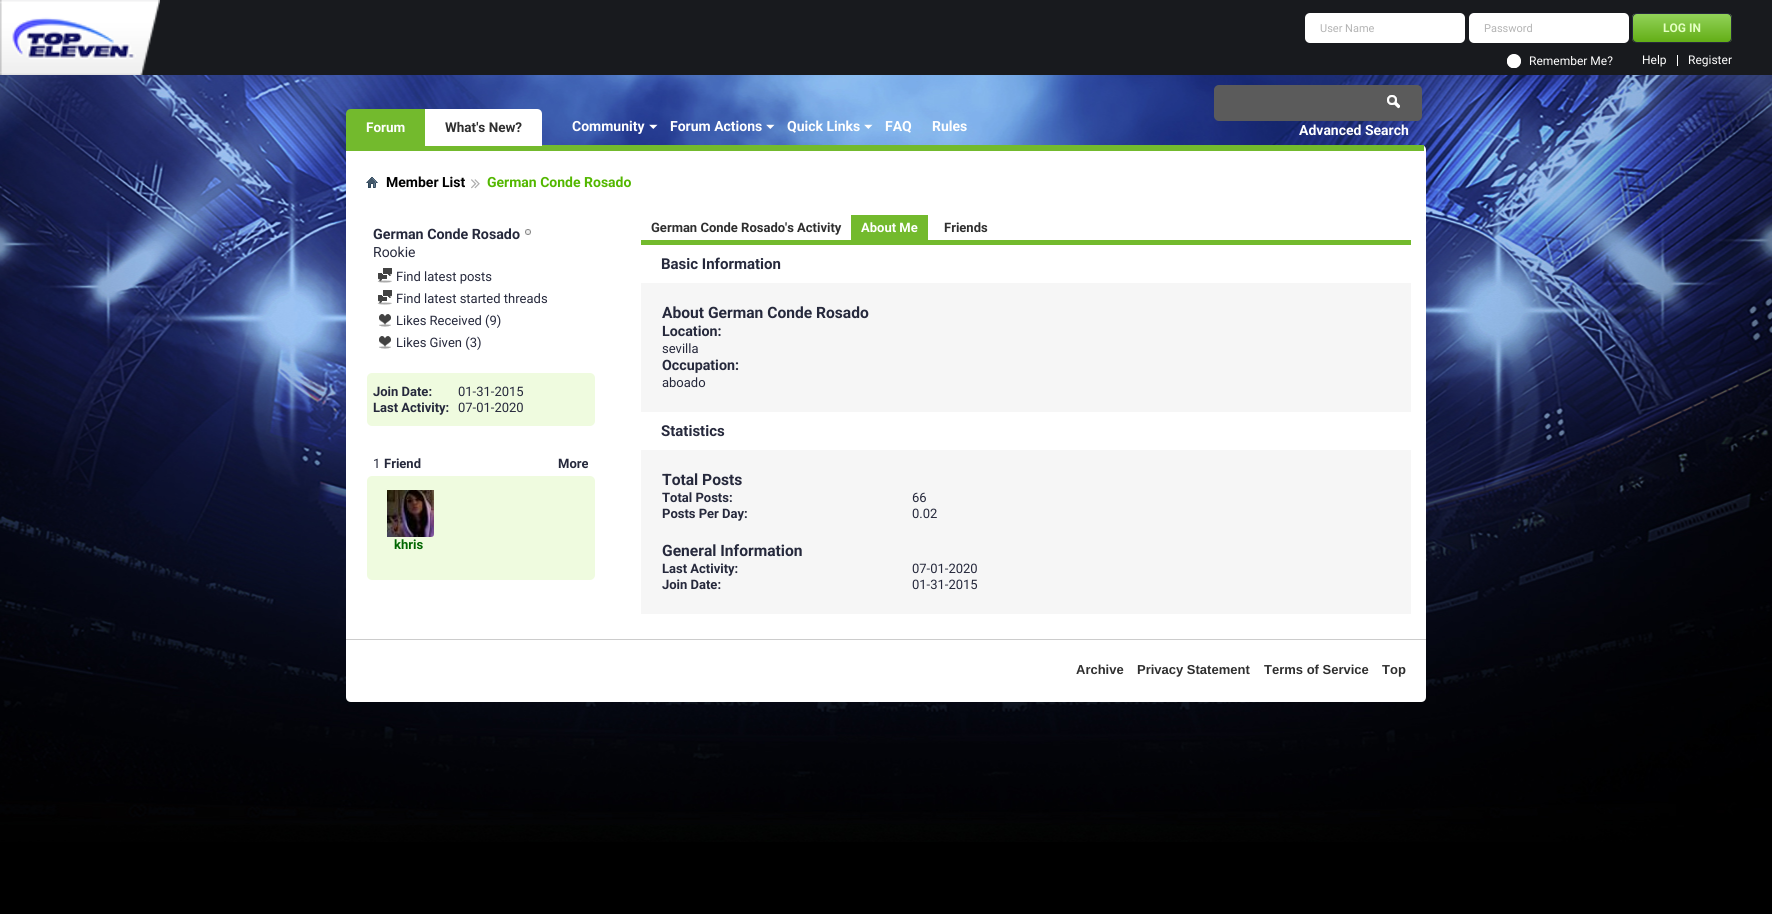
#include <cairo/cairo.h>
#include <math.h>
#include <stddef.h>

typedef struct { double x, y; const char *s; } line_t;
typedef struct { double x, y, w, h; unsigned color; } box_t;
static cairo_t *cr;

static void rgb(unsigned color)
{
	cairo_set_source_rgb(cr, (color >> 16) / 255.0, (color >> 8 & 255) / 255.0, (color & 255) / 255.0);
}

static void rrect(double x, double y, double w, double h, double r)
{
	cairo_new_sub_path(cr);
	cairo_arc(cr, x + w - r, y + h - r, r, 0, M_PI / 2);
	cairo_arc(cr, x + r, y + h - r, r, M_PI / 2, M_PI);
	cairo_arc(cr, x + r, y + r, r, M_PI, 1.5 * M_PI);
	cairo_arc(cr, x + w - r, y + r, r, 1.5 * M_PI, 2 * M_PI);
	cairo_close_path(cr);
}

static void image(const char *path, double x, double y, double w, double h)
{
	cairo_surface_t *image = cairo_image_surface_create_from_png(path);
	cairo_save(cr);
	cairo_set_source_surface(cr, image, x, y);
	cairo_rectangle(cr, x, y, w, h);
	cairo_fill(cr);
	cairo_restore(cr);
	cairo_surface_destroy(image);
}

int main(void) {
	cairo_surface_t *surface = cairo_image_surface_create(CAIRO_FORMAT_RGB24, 1772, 914);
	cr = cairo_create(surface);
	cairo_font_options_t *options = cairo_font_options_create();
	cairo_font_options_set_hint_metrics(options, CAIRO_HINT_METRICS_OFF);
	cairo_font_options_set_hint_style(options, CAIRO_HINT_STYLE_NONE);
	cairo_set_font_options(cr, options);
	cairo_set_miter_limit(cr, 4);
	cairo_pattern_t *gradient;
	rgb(0x000000);
	cairo_paint(cr);
	image("img/1.png", 0, 75, 1772, 767);
	rgb(0x181a1e);
	cairo_rectangle(cr, 0, 0, 1772, 75);
	cairo_fill(cr);
	image("img/2.png", 0, 0, 160, 75);
	rgb(0xffffff);
	rrect(1305, 13, 160, 30, 5);
	cairo_fill(cr);
	rrect(1469, 13, 160, 30, 5);
	cairo_fill(cr);
	cairo_save(cr);
	rrect(1632, 13, 100, 30, 5);
	cairo_clip(cr);
	gradient = cairo_pattern_create_linear(1682, 14, 1682, 42);
	cairo_pattern_add_color_stop_rgba(gradient, 0, 0.573, 0.824, 0.349, 1);
	cairo_pattern_add_color_stop_rgba(gradient, 1, 0.388, 0.682, 0.086, 1);
	cairo_set_source(cr, gradient);
	cairo_pattern_destroy(gradient);
	cairo_rectangle(cr, 1632, 14, 100, 28);
	cairo_fill(cr);
	cairo_restore(cr);
	rrect(1632.5, 13.5, 99, 29, 4.5);
	rgb(0x26293c);
	cairo_set_line_width(cr, 1);
	cairo_stroke(cr);
	image("img/3.png", 1507, 54, 14, 14);
	rgb(0xffffff);
	cairo_rectangle(cr, 1677, 55, 1, 11);
	cairo_fill(cr);
	cairo_new_path(cr);
	cairo_move_to(cr, 346, 145);
	cairo_line_to(cr, 1421, 145);
	cairo_curve_to(cr, 1424, 145, 1426, 147, 1426, 150);
	cairo_line_to(cr, 1426, 697);
	cairo_curve_to(cr, 1426, 700, 1424, 702, 1421, 702);
	cairo_line_to(cr, 351, 702);
	cairo_curve_to(cr, 348, 702, 346, 700, 346, 697);
	cairo_close_path(cr);
	cairo_fill(cr);
	rgb(0x73ba2d);
	cairo_rectangle(cr, 346, 145, 1078, 6);
	cairo_fill(cr);
	cairo_new_path(cr);
	cairo_move_to(cr, 351, 109);
	cairo_line_to(cr, 425, 109);
	cairo_line_to(cr, 425, 146);
	cairo_line_to(cr, 346, 146);
	cairo_line_to(cr, 346, 114);
	cairo_curve_to(cr, 346, 111, 348, 109, 351, 109);
	cairo_close_path(cr);
	cairo_fill(cr);
	rgb(0xffffff);
	cairo_new_path(cr);
	cairo_move_to(cr, 425, 109);
	cairo_line_to(cr, 537, 109);
	cairo_curve_to(cr, 540, 109, 542, 111, 542, 114);
	cairo_line_to(cr, 542, 146);
	cairo_line_to(cr, 425, 146);
	cairo_close_path(cr);
	cairo_fill(cr);
	image("img/4.png", 649, 124, 9, 5);
	image("img/5.png", 766, 124, 9, 5);
	image("img/6.png", 864, 124, 9, 5);
	rgb(0x5b5b5b);
	rrect(1214, 85, 208, 36, 5);
	cairo_fill(cr);
	image("img/7.png", 1387, 95, 13, 14);
	image("img/8.png", 366, 177, 12, 11);
	image("img/9.png", 471, 179, 9, 10);
	image("img/10.png", 525, 229, 6, 6);
	image("img/11.png", 377, 268, 15, 15);
	image("img/11.png", 377, 290, 15, 15);
	image("img/12.png", 379, 314, 12, 13);
	image("img/12.png", 379, 336, 12, 13);
	rgb(0xeffbdf);
	rrect(367, 373, 228, 53, 5);
	cairo_fill(cr);
	rrect(367, 476, 228, 104, 5);
	cairo_fill(cr);
	image("img/13.png", 387, 490, 47, 47);
	{
		static const box_t items[] = {
			{851, 215, 77, 25, 0x73ba2d},
			{641, 240, 770, 5, 0x73ba2d},
			{641, 283, 770, 129, 0xf6f6f6},
			{641, 450, 770, 164, 0xf6f6f6},
			{346, 639, 1080, 1, 0xcccccc},
		};
		for (size_t i = 0; i < sizeof items / sizeof *items; i++) {
			rgb(items[i].color);
			cairo_rectangle(cr, items[i].x, items[i].y, items[i].w, items[i].h);
			cairo_fill(cr);
		}
	}
	cairo_select_font_face(cr, "Roboto", CAIRO_FONT_SLANT_NORMAL, CAIRO_FONT_WEIGHT_NORMAL);
	cairo_set_font_size(cr, 11);
	rgb(0xb4b4b4);
	cairo_move_to(cr, 1320, 32);
	cairo_show_text(cr, "User Name");
	cairo_move_to(cr, 1484, 32);
	cairo_show_text(cr, "Password");
	cairo_select_font_face(cr, "Roboto", CAIRO_FONT_SLANT_NORMAL, CAIRO_FONT_WEIGHT_BOLD);
	cairo_set_font_size(cr, 12);
	rgb(0xe4ffc3);
	cairo_move_to(cr, 1663, 32);
	cairo_show_text(cr, "LOG IN");
	cairo_select_font_face(cr, "Roboto", CAIRO_FONT_SLANT_NORMAL, CAIRO_FONT_WEIGHT_NORMAL);
	rgb(0xffffff);
	{
		static const line_t items[] = {
			{1529, 65, "Remember Me?"},
			{1642, 64, "Help"},
			{1688, 64, "Register"},
		};
		for (size_t i = 0; i < sizeof items / sizeof *items; i++) {
			cairo_move_to(cr, items[i].x, items[i].y);
			cairo_show_text(cr, items[i].s);
		}
	}
	cairo_select_font_face(cr, "Roboto", CAIRO_FONT_SLANT_NORMAL, CAIRO_FONT_WEIGHT_BOLD);
	cairo_set_font_size(cr, 13.5);
	cairo_move_to(cr, 366, 132);
	cairo_show_text(cr, "Forum");
	rgb(0x2f2f2f);
	cairo_move_to(cr, 445, 132);
	cairo_show_text(cr, "What's New?");
	cairo_set_font_size(cr, 14);
	rgb(0xffffff);
	{
		static const line_t items[] = {
			{572, 131, "Community"},
			{670, 131, "Forum Actions"},
			{787, 131, "Quick Links"},
			{885, 131, "FAQ"},
			{932, 131, "Rules"},
			{1299, 135, "Advanced Search"},
		};
		for (size_t i = 0; i < sizeof items / sizeof *items; i++) {
			cairo_move_to(cr, items[i].x, items[i].y);
			cairo_show_text(cr, items[i].s);
		}
	}
	rgb(0x000000);
	cairo_move_to(cr, 386, 187);
	cairo_show_text(cr, "Member List");
	rgb(0x53b700);
	cairo_move_to(cr, 487, 187);
	cairo_show_text(cr, "German Conde Rosado");
	cairo_set_font_size(cr, 14.25);
	rgb(0x26293c);
	cairo_move_to(cr, 373, 239);
	cairo_show_text(cr, "German Conde Rosado");
	cairo_select_font_face(cr, "Roboto", CAIRO_FONT_SLANT_NORMAL, CAIRO_FONT_WEIGHT_NORMAL);
	cairo_set_font_size(cr, 14);
	cairo_move_to(cr, 373, 257);
	cairo_show_text(cr, "Rookie");
	cairo_set_font_size(cr, 13);
	{
		static const line_t items[] = {
			{396, 281, "Find latest posts"},
			{396, 303, "Find latest started threads"},
			{396, 325, "Likes Received (9)"},
			{396, 347, "Likes Given (3)"},
		};
		for (size_t i = 0; i < sizeof items / sizeof *items; i++) {
			cairo_move_to(cr, items[i].x, items[i].y);
			cairo_show_text(cr, items[i].s);
		}
	}
	cairo_select_font_face(cr, "Roboto", CAIRO_FONT_SLANT_NORMAL, CAIRO_FONT_WEIGHT_BOLD);
	cairo_move_to(cr, 373, 396);
	cairo_show_text(cr, "Join Date:");
	cairo_select_font_face(cr, "Roboto", CAIRO_FONT_SLANT_NORMAL, CAIRO_FONT_WEIGHT_NORMAL);
	cairo_move_to(cr, 458, 396);
	cairo_show_text(cr, "01-31-2015");
	cairo_select_font_face(cr, "Roboto", CAIRO_FONT_SLANT_NORMAL, CAIRO_FONT_WEIGHT_BOLD);
	cairo_move_to(cr, 373, 412);
	cairo_show_text(cr, "Last Activity:");
	cairo_select_font_face(cr, "Roboto", CAIRO_FONT_SLANT_NORMAL, CAIRO_FONT_WEIGHT_NORMAL);
	cairo_move_to(cr, 458, 412);
	cairo_show_text(cr, "07-01-2020");
	cairo_move_to(cr, 373, 468);
	cairo_show_text(cr, "1");
	cairo_select_font_face(cr, "Roboto", CAIRO_FONT_SLANT_NORMAL, CAIRO_FONT_WEIGHT_BOLD);
	cairo_move_to(cr, 384, 468);
	cairo_show_text(cr, "Friend");
	cairo_move_to(cr, 558, 468);
	cairo_show_text(cr, "More");
	rgb(0x006600);
	cairo_move_to(cr, 394, 549);
	cairo_show_text(cr, "khris");
	rgb(0x2f2f2f);
	cairo_move_to(cr, 651, 232);
	cairo_show_text(cr, "German Conde Rosado's Activity");
	rgb(0xffffff);
	cairo_move_to(cr, 861, 232);
	cairo_show_text(cr, "About Me");
	rgb(0x2f2f2f);
	cairo_move_to(cr, 944, 232);
	cairo_show_text(cr, "Friends");
	cairo_set_font_size(cr, 15);
	rgb(0x26293c);
	cairo_move_to(cr, 661, 269);
	cairo_show_text(cr, "Basic Information");
	cairo_set_font_size(cr, 15.6);
	cairo_move_to(cr, 662, 318);
	cairo_show_text(cr, "About German Conde Rosado");
	cairo_set_font_size(cr, 14.25);
	cairo_move_to(cr, 662, 336);
	cairo_show_text(cr, "Location:");
	cairo_select_font_face(cr, "Roboto", CAIRO_FONT_SLANT_NORMAL, CAIRO_FONT_WEIGHT_NORMAL);
	cairo_set_font_size(cr, 13);
	cairo_move_to(cr, 662, 353);
	cairo_show_text(cr, "sevilla");
	cairo_select_font_face(cr, "Roboto", CAIRO_FONT_SLANT_NORMAL, CAIRO_FONT_WEIGHT_BOLD);
	cairo_set_font_size(cr, 14.25);
	cairo_move_to(cr, 662, 370);
	cairo_show_text(cr, "Occupation:");
	cairo_select_font_face(cr, "Roboto", CAIRO_FONT_SLANT_NORMAL, CAIRO_FONT_WEIGHT_NORMAL);
	cairo_set_font_size(cr, 13);
	cairo_move_to(cr, 662, 387);
	cairo_show_text(cr, "aboado");
	cairo_select_font_face(cr, "Roboto", CAIRO_FONT_SLANT_NORMAL, CAIRO_FONT_WEIGHT_BOLD);
	cairo_set_font_size(cr, 15);
	cairo_move_to(cr, 661, 436);
	cairo_show_text(cr, "Statistics");
	cairo_set_font_size(cr, 15.6);
	cairo_move_to(cr, 662, 485);
	cairo_show_text(cr, "Total Posts");
	cairo_set_font_size(cr, 13);
	cairo_move_to(cr, 662, 502);
	cairo_show_text(cr, "Total Posts:");
	cairo_select_font_face(cr, "Roboto", CAIRO_FONT_SLANT_NORMAL, CAIRO_FONT_WEIGHT_NORMAL);
	cairo_move_to(cr, 912, 502);
	cairo_show_text(cr, "66");
	cairo_select_font_face(cr, "Roboto", CAIRO_FONT_SLANT_NORMAL, CAIRO_FONT_WEIGHT_BOLD);
	cairo_move_to(cr, 662, 518);
	cairo_show_text(cr, "Posts Per Day:");
	cairo_select_font_face(cr, "Roboto", CAIRO_FONT_SLANT_NORMAL, CAIRO_FONT_WEIGHT_NORMAL);
	cairo_move_to(cr, 912, 518);
	cairo_show_text(cr, "0.02");
	cairo_select_font_face(cr, "Roboto", CAIRO_FONT_SLANT_NORMAL, CAIRO_FONT_WEIGHT_BOLD);
	cairo_set_font_size(cr, 15.6);
	cairo_move_to(cr, 662, 556);
	cairo_show_text(cr, "General Information");
	cairo_set_font_size(cr, 13);
	cairo_move_to(cr, 662, 573);
	cairo_show_text(cr, "Last Activity:");
	cairo_select_font_face(cr, "Roboto", CAIRO_FONT_SLANT_NORMAL, CAIRO_FONT_WEIGHT_NORMAL);
	cairo_move_to(cr, 912, 573);
	cairo_show_text(cr, "07-01-2020");
	cairo_select_font_face(cr, "Roboto", CAIRO_FONT_SLANT_NORMAL, CAIRO_FONT_WEIGHT_BOLD);
	cairo_move_to(cr, 662, 589);
	cairo_show_text(cr, "Join Date:");
	cairo_select_font_face(cr, "Roboto", CAIRO_FONT_SLANT_NORMAL, CAIRO_FONT_WEIGHT_NORMAL);
	cairo_move_to(cr, 912, 589);
	cairo_show_text(cr, "01-31-2015");
	cairo_select_font_face(cr, "Liberation Sans", CAIRO_FONT_SLANT_NORMAL, CAIRO_FONT_WEIGHT_BOLD);
	rgb(0x2f2f2f);
	{
		static const line_t items[] = {
			{1076, 674, "Archive"},
			{1137, 674, "Privacy Statement"},
			{1264, 674, "Terms of Service"},
			{1382, 674, "Top"},
		};
		for (size_t i = 0; i < sizeof items / sizeof *items; i++) {
			cairo_move_to(cr, items[i].x, items[i].y);
			cairo_show_text(cr, items[i].s);
		}
	}
	cairo_surface_write_to_png(surface, "page.png");
	cairo_font_options_destroy(options);
	cairo_destroy(cr);
	cairo_surface_destroy(surface);
	return 0;
}
